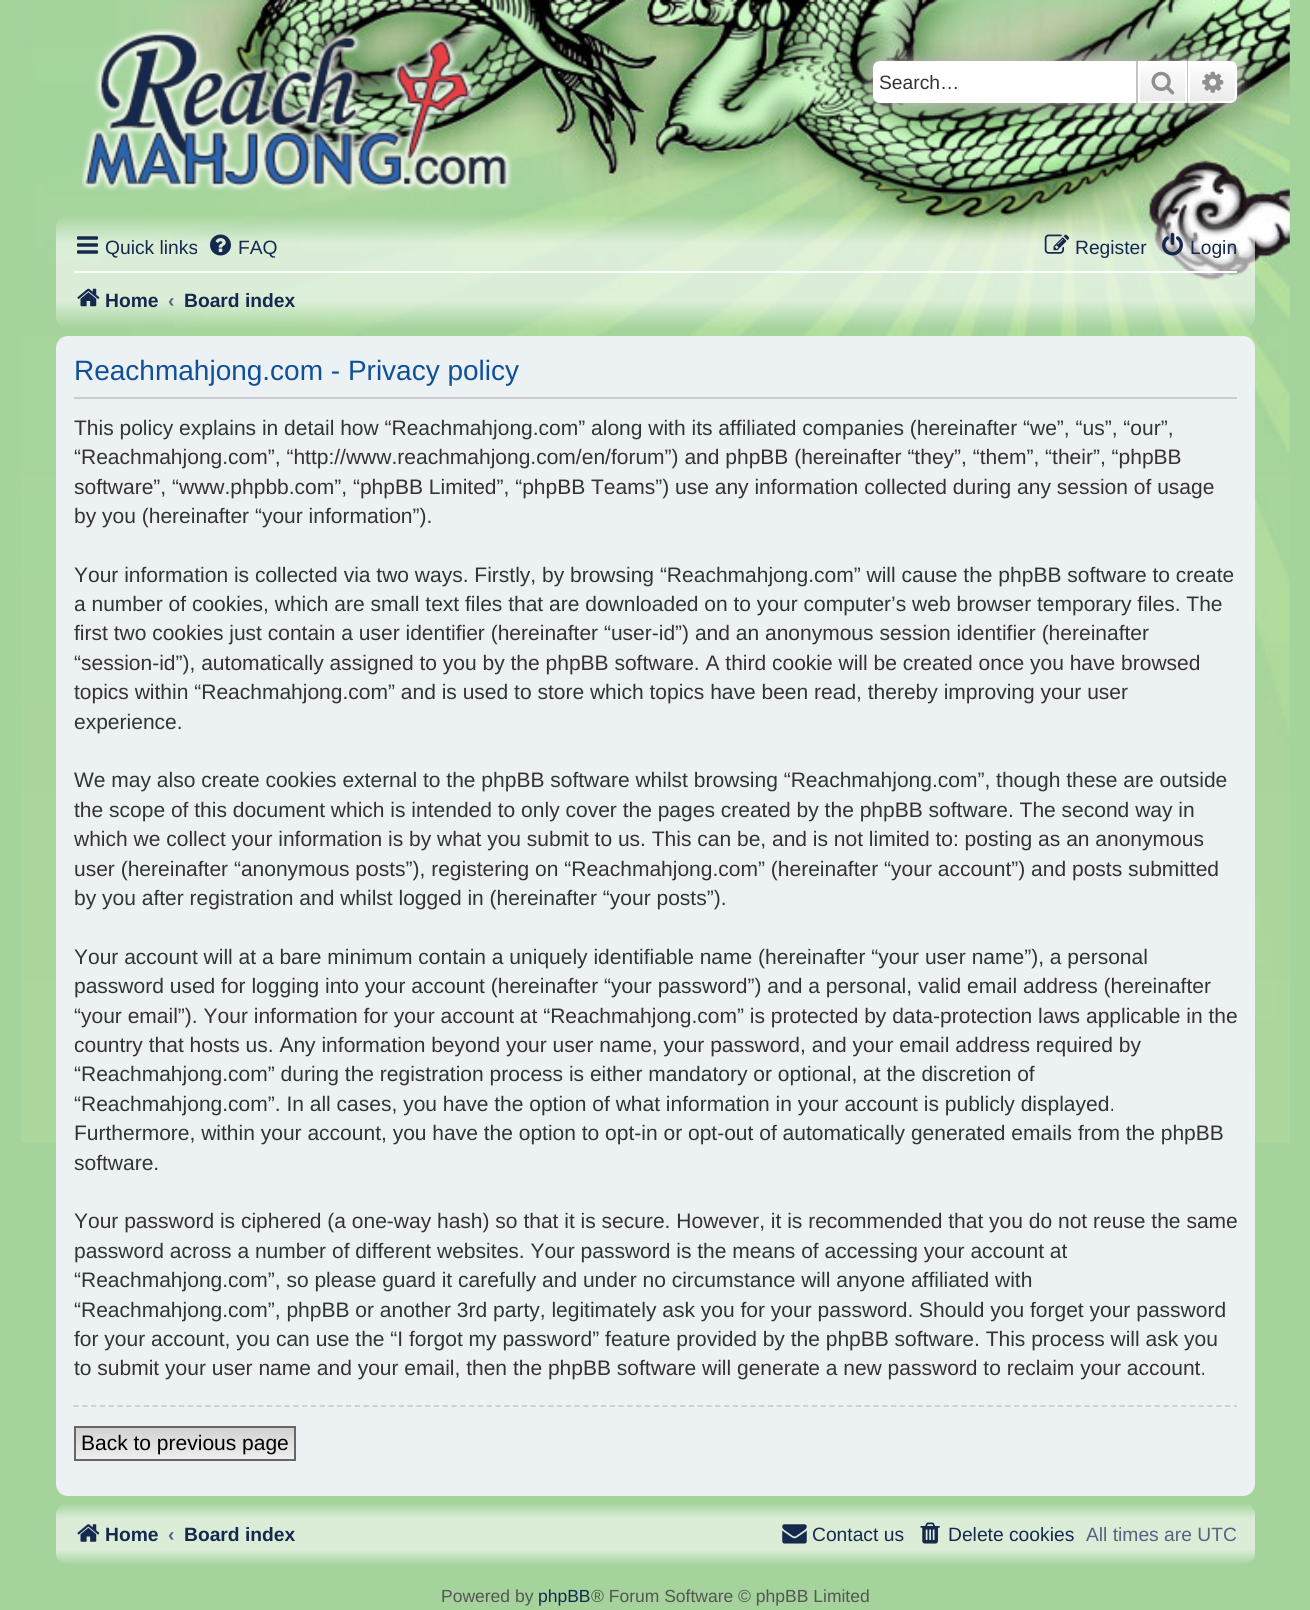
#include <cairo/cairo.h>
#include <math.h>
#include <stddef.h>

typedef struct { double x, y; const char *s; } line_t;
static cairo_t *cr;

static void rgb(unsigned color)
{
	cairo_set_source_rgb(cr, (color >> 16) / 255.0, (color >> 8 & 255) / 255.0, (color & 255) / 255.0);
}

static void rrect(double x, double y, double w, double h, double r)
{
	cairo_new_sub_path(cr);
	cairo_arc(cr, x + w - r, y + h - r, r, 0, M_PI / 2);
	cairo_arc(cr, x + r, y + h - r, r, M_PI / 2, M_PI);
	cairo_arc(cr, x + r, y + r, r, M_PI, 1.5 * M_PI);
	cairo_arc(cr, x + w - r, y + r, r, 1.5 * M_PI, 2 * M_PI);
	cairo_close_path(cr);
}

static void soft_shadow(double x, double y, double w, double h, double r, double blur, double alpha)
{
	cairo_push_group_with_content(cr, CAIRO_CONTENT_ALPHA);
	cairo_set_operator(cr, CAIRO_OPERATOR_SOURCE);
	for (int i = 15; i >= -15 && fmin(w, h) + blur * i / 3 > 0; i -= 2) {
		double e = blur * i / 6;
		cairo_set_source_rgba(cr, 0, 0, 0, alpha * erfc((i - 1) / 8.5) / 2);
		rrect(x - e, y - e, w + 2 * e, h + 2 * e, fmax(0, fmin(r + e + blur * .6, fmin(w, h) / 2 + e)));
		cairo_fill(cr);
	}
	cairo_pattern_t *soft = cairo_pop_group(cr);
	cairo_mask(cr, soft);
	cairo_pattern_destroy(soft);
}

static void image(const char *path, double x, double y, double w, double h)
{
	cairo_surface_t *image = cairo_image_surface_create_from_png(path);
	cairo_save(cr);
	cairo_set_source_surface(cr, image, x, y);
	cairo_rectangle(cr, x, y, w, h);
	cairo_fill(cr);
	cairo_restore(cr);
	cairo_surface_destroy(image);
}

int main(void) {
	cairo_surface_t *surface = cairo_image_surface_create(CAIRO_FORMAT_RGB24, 1310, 1610);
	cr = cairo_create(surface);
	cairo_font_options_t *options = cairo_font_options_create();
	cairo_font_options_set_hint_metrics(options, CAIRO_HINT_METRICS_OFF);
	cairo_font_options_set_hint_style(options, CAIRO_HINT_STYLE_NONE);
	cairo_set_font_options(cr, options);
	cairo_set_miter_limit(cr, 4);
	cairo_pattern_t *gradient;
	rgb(0xa4d39c);
	cairo_paint(cr);
	image("img/1.png", 21, 0, 1269, 1143);
	image("img/2.png", 82, 28, 430, 163);
	rgb(0xc7c3bf);
	soft_shadow(873, 61, 364, 42, 7, 9, 1);
	rgb(0xffffff);
	cairo_new_path(cr);
	cairo_move_to(cr, 880, 61);
	cairo_line_to(cr, 1136, 61);
	cairo_line_to(cr, 1136, 103);
	cairo_line_to(cr, 880, 103);
	cairo_curve_to(cr, 876, 103, 873, 100, 873, 96);
	cairo_line_to(cr, 873, 68);
	cairo_curve_to(cr, 873, 64, 876, 61, 880, 61);
	cairo_close_path(cr);
	cairo_fill(cr);
	gradient = cairo_pattern_create_linear(1162, 61, 1162, 103);
	cairo_pattern_add_color_stop_rgba(gradient, 0, 1, 1, 1, 1);
	cairo_pattern_add_color_stop_rgba(gradient, 1, 0.914, 0.914, 0.914, 1);
	cairo_set_source(cr, gradient);
	cairo_pattern_destroy(gradient);
	cairo_rectangle(cr, 1140, 63, 45, 38);
	cairo_fill(cr);
	cairo_rectangle(cr, 1139, 62, 47, 40);
	rgb(0xffffff);
	cairo_stroke(cr);
	rgb(0xc7c3bf);
	cairo_rectangle(cr, 1187, 61, 1, 42);
	cairo_fill(cr);
	cairo_rectangle(cr, 1136, 61, 2, 42);
	cairo_fill(cr);
	image("img/3.png", 1151, 71, 24, 24);
	gradient = cairo_pattern_create_linear(1213, 61, 1213, 103);
	cairo_pattern_add_color_stop_rgba(gradient, 0, 1, 1, 1, 1);
	cairo_pattern_add_color_stop_rgba(gradient, 1, 0.914, 0.914, 0.914, 1);
	cairo_set_source(cr, gradient);
	cairo_pattern_destroy(gradient);
	cairo_new_path(cr);
	cairo_move_to(cr, 1189, 62);
	cairo_line_to(cr, 1230, 62);
	cairo_curve_to(cr, 1233.5, 62, 1236, 64.5, 1236, 68);
	cairo_line_to(cr, 1236, 96);
	cairo_curve_to(cr, 1236, 99.5, 1233.5, 102, 1230, 102);
	cairo_line_to(cr, 1189, 102);
	cairo_close_path(cr);
	cairo_fill_preserve(cr);
	rgb(0xffffff);
	cairo_stroke(cr);
	image("img/4.png", 1202, 71, 22, 22);
	image("img/5.png", 77, 236, 21, 18);
	image("img/6.png", 210, 234, 21, 22);
	image("img/7.png", 1044, 234, 26, 20);
	image("img/8.png", 1162, 232, 21, 24);
	cairo_rectangle(cr, 74, 271, 1163, 2);
	cairo_fill(cr);
	image("img/9.png", 77, 288, 23, 19);
	rgb(0xecf1f3);
	rrect(56, 336, 1199, 1160, 12);
	cairo_fill(cr);
	rgb(0xcccccc);
	cairo_rectangle(cr, 74, 397, 1163, 2);
	cairo_fill(cr);
	cairo_new_path(cr);
	cairo_move_to(cr, 73.5, 1406);
	cairo_line_to(cr, 1237, 1406);
	cairo_set_line_width(cr, 1.8);
	cairo_set_dash(cr, (double[]){5.25, 3.54}, 2, 0);
	cairo_stroke(cr);
	gradient = cairo_pattern_create_linear(185, 1428, 185, 1460);
	cairo_pattern_add_color_stop_rgba(gradient, 0, 0.824, 0.824, 0.824, 1);
	cairo_pattern_add_color_stop_rgba(gradient, 1, 0.937, 0.937, 0.937, 1);
	cairo_set_source(cr, gradient);
	cairo_pattern_destroy(gradient);
	cairo_rectangle(cr, 76, 1428, 218, 31);
	cairo_fill(cr);
	cairo_rectangle(cr, 75, 1427, 220, 33);
	rgb(0x666666);
	cairo_set_line_width(cr, 2);
	cairo_set_dash(cr, NULL, 0, 0);
	cairo_stroke(cr);
	gradient = cairo_pattern_create_linear(655, 1503, 655, 1565);
	cairo_pattern_add_color_stop_rgba(gradient, 0, 0.643, 0.827, 0.612, 1);
	cairo_pattern_add_color_stop_rgba(gradient, 0.25, 0.859, 0.929, 0.843, 1);
	cairo_pattern_add_color_stop_rgba(gradient, 0.75, 0.859, 0.929, 0.843, 1);
	cairo_pattern_add_color_stop_rgba(gradient, 1, 0.643, 0.827, 0.612, 1);
	cairo_set_source(cr, gradient);
	cairo_pattern_destroy(gradient);
	rrect(56, 1503, 1199, 62, 12);
	cairo_fill(cr);
	image("img/10.png", 77, 1524, 23, 18);
	image("img/11.png", 782, 1524, 25, 20);
	image("img/12.png", 920, 1522, 20, 22);
	cairo_select_font_face(cr, "Liberation Sans", CAIRO_FONT_SLANT_NORMAL, CAIRO_FONT_WEIGHT_NORMAL);
	cairo_set_font_size(cr, 19.25);
	rgb(0x333333);
	cairo_move_to(cr, 879, 89);
	cairo_show_text(cr, "Search…");
	rgb(0x15294f);
	{
		static const line_t items[] = {
			{105, 254, "Quick links"},
			{238, 254, "FAQ"},
			{1075, 254, "Register"},
			{1190, 254, "Login"},
		};
		for (size_t i = 0; i < sizeof items / sizeof *items; i++) {
			cairo_move_to(cr, items[i].x, items[i].y);
			cairo_show_text(cr, items[i].s);
		}
	}
	cairo_select_font_face(cr, "Liberation Sans", CAIRO_FONT_SLANT_NORMAL, CAIRO_FONT_WEIGHT_BOLD);
	cairo_move_to(cr, 105, 307);
	cairo_show_text(cr, "Home");
	rgb(0x536482);
	cairo_move_to(cr, 168, 307);
	cairo_show_text(cr, "‹");
	rgb(0x15294f);
	cairo_move_to(cr, 184, 307);
	cairo_show_text(cr, "Board index");
	cairo_select_font_face(cr, "Liberation Sans", CAIRO_FONT_SLANT_NORMAL, CAIRO_FONT_WEIGHT_NORMAL);
	cairo_set_font_size(cr, 28);
	rgb(0x115098);
	cairo_move_to(cr, 74, 380);
	cairo_show_text(cr, "Reachmahjong.com - Privacy policy");
	cairo_set_font_size(cr, 21);
	rgb(0x333333);
	{
		static const line_t items[] = {
			{74, 435, "This policy explains in detail how “Reachmahjong.com” along with its affiliated companies (hereinafter “we”, “us”, “our”,"},
			{74, 464, "“Reachmahjong.com”, “http://www.reachmahjong.com/en/forum”) and phpBB (hereinafter “they”, “them”, “their”, “phpBB"},
			{74, 494, "software”, “www.phpbb.com”, “phpBB Limited”, “phpBB Teams”) use any information collected during any session of usage"},
			{74, 523, "by you (hereinafter “your information”)."},
			{74, 582, "Your information is collected via two ways. Firstly, by browsing “Reachmahjong.com” will cause the phpBB software to create"},
			{74, 611, "a number of cookies, which are small text files that are downloaded on to your computer’s web browser temporary files. The"},
			{74, 640, "first two cookies just contain a user identifier (hereinafter “user-id”) and an anonymous session identifier (hereinafter"},
			{74, 670, "“session-id”), automatically assigned to you by the phpBB software. A third cookie will be created once you have browsed"},
			{74, 699, "topics within “Reachmahjong.com” and is used to store which topics have been read, thereby improving your user"},
			{74, 729, "experience."},
			{74, 787, "We may also create cookies external to the phpBB software whilst browsing “Reachmahjong.com”, though these are outside"},
			{74, 817, "the scope of this document which is intended to only cover the pages created by the phpBB software. The second way in"},
			{74, 846, "which we collect your information is by what you submit to us. This can be, and is not limited to: posting as an anonymous"},
			{74, 876, "user (hereinafter “anonymous posts”), registering on “Reachmahjong.com” (hereinafter “your account”) and posts submitted"},
			{74, 905, "by you after registration and whilst logged in (hereinafter “your posts”)."},
			{74, 964, "Your account will at a bare minimum contain a uniquely identifiable name (hereinafter “your user name”), a personal"},
			{74, 993, "password used for logging into your account (hereinafter “your password”) and a personal, valid email address (hereinafter"},
			{74, 1023, "“your email”). Your information for your account at “Reachmahjong.com” is protected by data-protection laws applicable in the"},
			{74, 1052, "country that hosts us. Any information beyond your user name, your password, and your email address required by"},
			{74, 1081, "“Reachmahjong.com” during the registration process is either mandatory or optional, at the discretion of"},
			{74, 1111, "“Reachmahjong.com”. In all cases, you have the option of what information in your account is publicly displayed."},
			{74, 1140, "Furthermore, within your account, you have the option to opt-in or opt-out of automatically generated emails from the phpBB"},
			{74, 1170, "software."},
			{74, 1228, "Your password is ciphered (a one-way hash) so that it is secure. However, it is recommended that you do not reuse the same"},
			{74, 1258, "password across a number of different websites. Your password is the means of accessing your account at"},
			{74, 1287, "“Reachmahjong.com”, so please guard it carefully and under no circumstance will anyone affiliated with"},
			{74, 1317, "“Reachmahjong.com”, phpBB or another 3rd party, legitimately ask you for your password. Should you forget your password"},
			{74, 1346, "for your account, you can use the “I forgot my password” feature provided by the phpBB software. This process will ask you"},
			{74, 1375, "to submit your user name and your email, then the phpBB software will generate a new password to reclaim your account."},
		};
		for (size_t i = 0; i < sizeof items / sizeof *items; i++) {
			cairo_move_to(cr, items[i].x, items[i].y);
			cairo_show_text(cr, items[i].s);
		}
	}
	rgb(0x000000);
	cairo_move_to(cr, 81, 1450);
	cairo_show_text(cr, "Back to previous page");
	cairo_select_font_face(cr, "Liberation Sans", CAIRO_FONT_SLANT_NORMAL, CAIRO_FONT_WEIGHT_BOLD);
	cairo_set_font_size(cr, 19.25);
	rgb(0x15294f);
	cairo_move_to(cr, 105, 1541);
	cairo_show_text(cr, "Home");
	rgb(0x536482);
	cairo_move_to(cr, 168, 1541);
	cairo_show_text(cr, "‹");
	rgb(0x15294f);
	cairo_move_to(cr, 184, 1541);
	cairo_show_text(cr, "Board index");
	cairo_select_font_face(cr, "Liberation Sans", CAIRO_FONT_SLANT_NORMAL, CAIRO_FONT_WEIGHT_NORMAL);
	cairo_move_to(cr, 812, 1541);
	cairo_show_text(cr, "Contact us");
	cairo_move_to(cr, 948, 1541);
	cairo_show_text(cr, "Delete cookies");
	rgb(0x536482);
	cairo_move_to(cr, 1086, 1541);
	cairo_show_text(cr, "All times are UTC");
	cairo_set_font_size(cr, 17.5);
	rgb(0x555555);
	cairo_move_to(cr, 441, 1602);
	cairo_show_text(cr, "Powered by");
	rgb(0x15294f);
	cairo_move_to(cr, 538, 1602);
	cairo_show_text(cr, "phpBB");
	rgb(0x555555);
	cairo_move_to(cr, 591, 1602);
	cairo_show_text(cr, "® Forum Software © phpBB Limited");
	cairo_surface_write_to_png(surface, "page.png");
	cairo_font_options_destroy(options);
	cairo_destroy(cr);
	cairo_surface_destroy(surface);
	return 0;
}
